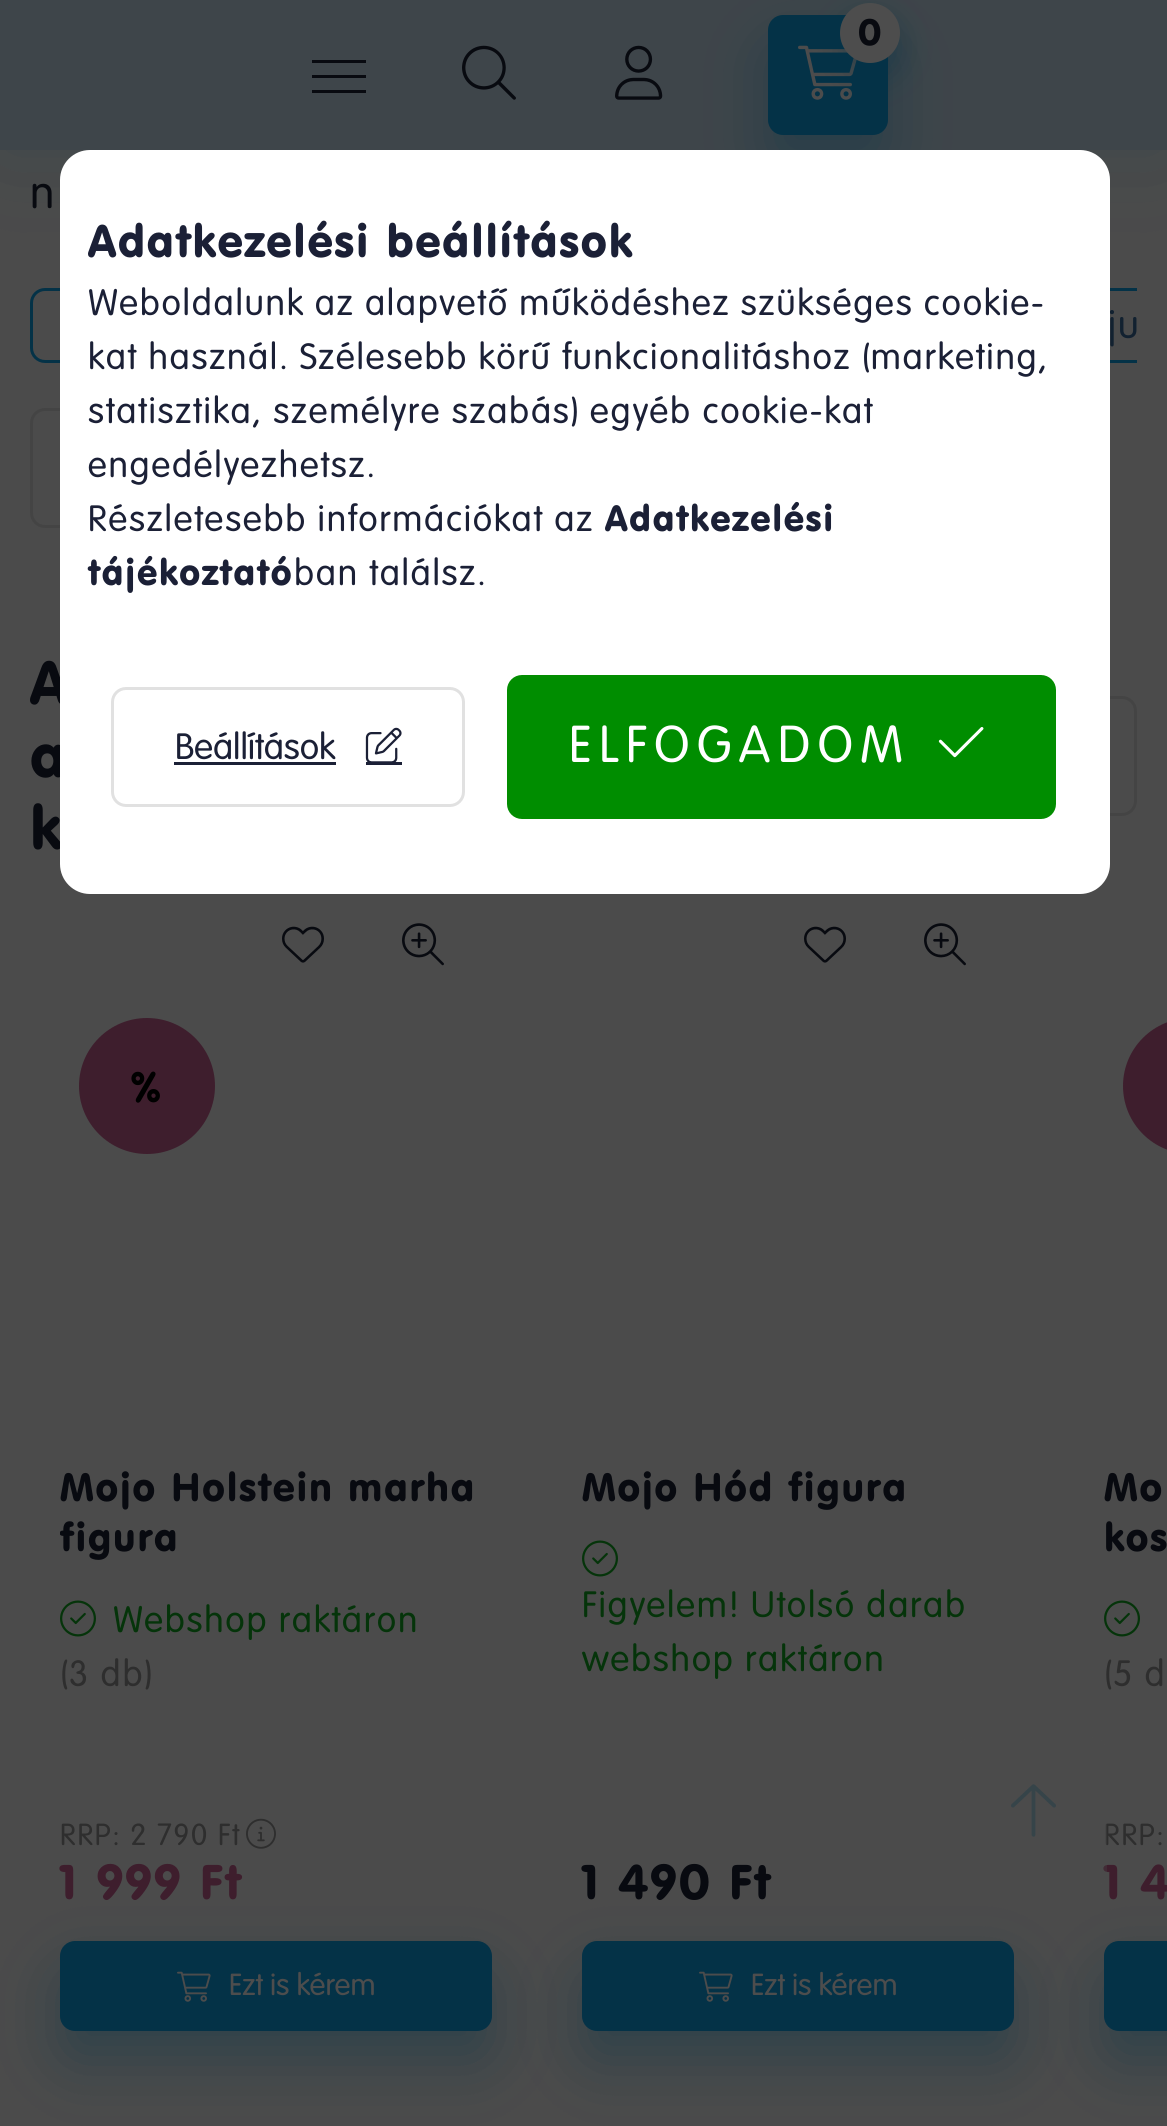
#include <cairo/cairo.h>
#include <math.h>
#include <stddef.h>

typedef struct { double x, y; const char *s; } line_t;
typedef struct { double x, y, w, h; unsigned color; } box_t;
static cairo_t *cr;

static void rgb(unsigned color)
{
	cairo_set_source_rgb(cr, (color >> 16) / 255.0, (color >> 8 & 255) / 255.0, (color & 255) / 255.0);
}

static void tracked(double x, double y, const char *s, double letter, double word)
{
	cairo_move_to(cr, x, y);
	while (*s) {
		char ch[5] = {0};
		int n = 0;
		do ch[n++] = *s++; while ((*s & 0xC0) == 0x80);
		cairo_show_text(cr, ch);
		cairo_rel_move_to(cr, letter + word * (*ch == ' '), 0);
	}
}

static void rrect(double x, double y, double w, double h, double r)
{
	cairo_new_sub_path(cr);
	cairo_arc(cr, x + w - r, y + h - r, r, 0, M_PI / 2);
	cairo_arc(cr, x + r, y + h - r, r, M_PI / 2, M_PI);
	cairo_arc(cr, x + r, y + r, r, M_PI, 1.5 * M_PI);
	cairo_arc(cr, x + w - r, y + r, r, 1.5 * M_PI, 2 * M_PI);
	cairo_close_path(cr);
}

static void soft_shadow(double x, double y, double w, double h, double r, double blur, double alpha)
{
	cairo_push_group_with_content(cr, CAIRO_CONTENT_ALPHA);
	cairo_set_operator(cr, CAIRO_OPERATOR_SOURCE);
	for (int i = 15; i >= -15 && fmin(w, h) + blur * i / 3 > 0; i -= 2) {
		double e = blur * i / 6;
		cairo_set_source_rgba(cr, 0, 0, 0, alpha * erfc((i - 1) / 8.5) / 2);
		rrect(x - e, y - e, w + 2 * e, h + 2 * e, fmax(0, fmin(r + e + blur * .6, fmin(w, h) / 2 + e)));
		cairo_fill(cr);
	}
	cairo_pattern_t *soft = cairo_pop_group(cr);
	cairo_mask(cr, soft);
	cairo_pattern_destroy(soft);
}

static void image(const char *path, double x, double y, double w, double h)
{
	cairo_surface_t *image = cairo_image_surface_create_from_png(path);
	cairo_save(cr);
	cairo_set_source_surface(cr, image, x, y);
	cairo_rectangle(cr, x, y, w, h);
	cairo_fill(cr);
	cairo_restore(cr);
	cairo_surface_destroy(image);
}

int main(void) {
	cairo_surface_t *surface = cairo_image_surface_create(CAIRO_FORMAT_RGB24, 1167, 2126);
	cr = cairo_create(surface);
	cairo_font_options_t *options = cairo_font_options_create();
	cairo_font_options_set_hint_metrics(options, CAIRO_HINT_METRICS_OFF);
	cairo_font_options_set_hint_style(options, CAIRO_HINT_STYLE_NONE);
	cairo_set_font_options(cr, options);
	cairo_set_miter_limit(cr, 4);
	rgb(0x4b4b4b);
	cairo_paint(cr);
	rgb(0x043247);
	soft_shadow(0, 0, 1167, 150, 0, 45, 0.2);
	rgb(0x3e454a);
	cairo_rectangle(cr, 0, 0, 1167, 150);
	cairo_fill(cr);
	rgb(0x043247);
	soft_shadow(768, 45, 120, 120, 15, 30, 0.4);
	rgb(0x043247);
	rrect(768, 15, 120, 120, 15);
	cairo_fill(cr);
	image("img/1.png", 798, 45, 59, 55);
	rgb(0x043247);
	soft_shadow(840, 18, 60, 60, 30, 15, 0.4);
	rgb(0x4d4d4d);
	cairo_arc(cr, 870, 33, 30, 0, 2 * M_PI);
	cairo_fill(cr);
	{
		static const box_t items[] = {
			{312, 60, 54, 3, 0x080a10},
			{312, 75, 54, 3, 0x080a10},
			{312, 90, 54, 3, 0x080a10},
		};
		for (size_t i = 0; i < sizeof items / sizeof *items; i++) {
			rgb(items[i].color);
			cairo_rectangle(cr, items[i].x, items[i].y, items[i].w, items[i].h);
			cairo_fill(cr);
		}
	}
	image("img/2.png", 462, 45, 54, 55);
	image("img/3.png", 615, 45, 48, 55);
	rrect(31.5, 289.5, 423, 72, 13.5);
	rgb(0x043247);
	cairo_set_line_width(cr, 3);
	cairo_stroke(cr);
	cairo_save(cr);
	cairo_rectangle(cr, 30, 288, 1107, 90);
	cairo_clip(cr);
	rrect(724.5, 289.5, 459, 72, 13.5);
	cairo_stroke(cr);
	cairo_restore(cr);
	rrect(31.5, 409.5, 117, 117, 13.5);
	rgb(0x444444);
	cairo_stroke(cr);
	rrect(1018.5, 697.5, 117, 117, 13.5);
	cairo_stroke(cr);
	image("img/4.png", 282, 926, 42, 37);
	image("img/5.png", 402, 923, 42, 43);
	rgb(0x3e1e2d);
	cairo_arc(cr, 147, 1086, 68, 0, 2 * M_PI);
	cairo_fill(cr);
	image("img/6.png", 60, 1600, 36, 37);
	image("img/7.png", 246, 1818, 30, 31);
	rgb(0x043247);
	soft_shadow(60, 1971, 432, 90, 15, 30, 0.4);
	rgb(0x043247);
	rrect(60, 1941, 432, 90, 15);
	cairo_fill(cr);
	image("img/8.png", 177, 1971, 34, 31);
	image("img/9.png", 804, 926, 42, 37);
	image("img/10.png", 924, 923, 42, 43);
	image("img/11.png", 582, 1540, 36, 37);
	rgb(0x043247);
	soft_shadow(582, 1971, 432, 90, 15, 30, 0.4);
	rgb(0x043247);
	rrect(582, 1941, 432, 90, 15);
	cairo_fill(cr);
	image("img/12.png", 699, 1971, 34, 31);
	rgb(0x3e1e2d);
	cairo_arc(cr, 1191, 1086, 68, 0, 2 * M_PI);
	cairo_fill(cr);
	image("img/13.png", 1104, 1600, 36, 37);
	rgb(0x043247);
	soft_shadow(1104, 1971, 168, 90, 15, 30, 0.4);
	rgb(0x043247);
	cairo_new_path(cr);
	cairo_move_to(cr, 1119, 1941);
	cairo_line_to(cr, 1167, 1941);
	cairo_line_to(cr, 1167, 2031);
	cairo_line_to(cr, 1119, 2031);
	cairo_curve_to(cr, 1110.5, 2031, 1104, 2024.5, 1104, 2016);
	cairo_line_to(cr, 1104, 1956);
	cairo_curve_to(cr, 1104, 1947.5, 1110.5, 1941, 1119, 1941);
	cairo_close_path(cr);
	cairo_fill(cr);
	cairo_select_font_face(cr, "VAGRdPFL", CAIRO_FONT_SLANT_NORMAL, CAIRO_FONT_WEIGHT_NORMAL);
	cairo_set_font_size(cr, 36);
	rgb(0x080a10);
	cairo_move_to(cr, 858, 45);
	cairo_show_text(cr, "0");
	cairo_select_font_face(cr, "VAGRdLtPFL", CAIRO_FONT_SLANT_NORMAL, CAIRO_FONT_WEIGHT_NORMAL);
	cairo_set_font_size(cr, 45);
	tracked(30, 208, "n", 1.8, 0);
	cairo_set_font_size(cr, 39);
	rgb(0x122130);
	tracked(1108, 338, "ju", 1.8, 0);
	cairo_select_font_face(cr, "VAGRdPFL", CAIRO_FONT_SLANT_NORMAL, CAIRO_FONT_WEIGHT_NORMAL);
	cairo_set_font_size(cr, 60);
	rgb(0x080a10);
	{
		static const line_t items[] = {
			{30, 704, "A"},
			{30, 777, "a"},
			{30, 849, "k"},
		};
		for (size_t i = 0; i < sizeof items / sizeof *items; i++) {
			tracked(items[i].x, items[i].y, items[i].s, 1.8, 0);
		}
	}
	cairo_set_font_size(cr, 42);
	rgb(0x000000);
	tracked(131, 1102, "%", 1.8, 0);
	cairo_set_font_size(cr, 39);
	rgb(0x080a10);
	tracked(60, 1501, "Mojo Holstein marha", 1.8, 0);
	cairo_save(cr);
	cairo_rectangle(cr, 60, 1461, 432, 102);
	cairo_clip(cr);
	tracked(60, 1551, "figura", 1.8, 0);
	cairo_restore(cr);
	cairo_select_font_face(cr, "VAGRdLtPFL", CAIRO_FONT_SLANT_NORMAL, CAIRO_FONT_WEIGHT_NORMAL);
	cairo_set_font_size(cr, 36);
	rgb(0x05340a);
	tracked(113, 1632, "Webshop raktáron", 1.8, 0);
	rgb(0x2e2e2e);
	tracked(60, 1686, "(3 db)", 1.8, 0);
	cairo_set_font_size(cr, 30);
	tracked(60, 1845, "RRP: 2 790 Ft", 1.8, 0);
	cairo_select_font_face(cr, "VAGRdPFL", CAIRO_FONT_SLANT_NORMAL, CAIRO_FONT_WEIGHT_NORMAL);
	cairo_set_font_size(cr, 48);
	rgb(0x3e1e2d);
	tracked(60, 1899, "1 999 Ft", 1.8, 0);
	cairo_select_font_face(cr, "VAGRdLtPFL", CAIRO_FONT_SLANT_NORMAL, CAIRO_FONT_WEIGHT_NORMAL);
	cairo_set_font_size(cr, 30);
	rgb(0x4d4d4d);
	cairo_move_to(cr, 229, 1995);
	cairo_show_text(cr, "Ezt is kérem");
	cairo_select_font_face(cr, "VAGRdPFL", CAIRO_FONT_SLANT_NORMAL, CAIRO_FONT_WEIGHT_NORMAL);
	cairo_set_font_size(cr, 39);
	rgb(0x080a10);
	tracked(582, 1501, "Mojo Hód figura", 1.8, 0);
	cairo_select_font_face(cr, "VAGRdLtPFL", CAIRO_FONT_SLANT_NORMAL, CAIRO_FONT_WEIGHT_NORMAL);
	cairo_set_font_size(cr, 36);
	rgb(0x05340a);
	tracked(582, 1617, "Figyelem! Utolsó darab", 1.8, 0);
	tracked(582, 1671, "webshop raktáron", 1.8, 0);
	cairo_select_font_face(cr, "VAGRdPFL", CAIRO_FONT_SLANT_NORMAL, CAIRO_FONT_WEIGHT_NORMAL);
	cairo_set_font_size(cr, 48);
	rgb(0x080a10);
	tracked(582, 1899, "1 490 Ft", 1.8, 0);
	cairo_select_font_face(cr, "VAGRdLtPFL", CAIRO_FONT_SLANT_NORMAL, CAIRO_FONT_WEIGHT_NORMAL);
	cairo_set_font_size(cr, 30);
	rgb(0x4d4d4d);
	cairo_move_to(cr, 751, 1995);
	cairo_show_text(cr, "Ezt is kérem");
	cairo_select_font_face(cr, "VAGRdPFL", CAIRO_FONT_SLANT_NORMAL, CAIRO_FONT_WEIGHT_NORMAL);
	cairo_set_font_size(cr, 39);
	rgb(0x080a10);
	tracked(1104, 1501, "Mo", 1.8, 0);
	tracked(1104, 1551, "kos", 1.8, 0);
	cairo_select_font_face(cr, "VAGRdLtPFL", CAIRO_FONT_SLANT_NORMAL, CAIRO_FONT_WEIGHT_NORMAL);
	cairo_set_font_size(cr, 36);
	rgb(0x2e2e2e);
	tracked(1104, 1686, "(5 d", 1.8, 0);
	cairo_set_font_size(cr, 30);
	tracked(1104, 1845, "RRP:", 1.8, 0);
	cairo_select_font_face(cr, "VAGRdPFL", CAIRO_FONT_SLANT_NORMAL, CAIRO_FONT_WEIGHT_NORMAL);
	cairo_set_font_size(cr, 48);
	rgb(0x3e1e2d);
	tracked(1104, 1899, "1 4", 1.8, 0);
	rgb(0xffffff);
	rrect(60, 150, 1050, 744, 30);
	cairo_fill(cr);
	cairo_set_font_size(cr, 45);
	rgb(0x1b2036);
	tracked(88, 257, "Adatkezelési beállítások", 1.8, 0);
	cairo_select_font_face(cr, "VAGRdLtPFL", CAIRO_FONT_SLANT_NORMAL, CAIRO_FONT_WEIGHT_NORMAL);
	cairo_set_font_size(cr, 36);
	{
		static const line_t items[] = {
			{88, 315, "Weboldalunk az alapvető működéshez szükséges cookie-"},
			{88, 369, "kat használ. Szélesebb körű funkcionalitáshoz (marketing,"},
			{88, 423, "statisztika, személyre szabás) egyéb cookie-kat"},
			{88, 477, "engedélyezhetsz."},
			{88, 531, "Részletesebb információkat az"},
		};
		for (size_t i = 0; i < sizeof items / sizeof *items; i++) {
			tracked(items[i].x, items[i].y, items[i].s, 1.8, 0);
		}
	}
	cairo_select_font_face(cr, "VAGRdPFL", CAIRO_FONT_SLANT_NORMAL, CAIRO_FONT_WEIGHT_NORMAL);
	tracked(605, 531, "Adatkezelési", 1.8, 0);
	tracked(88, 585, "tájékoztató", 1.8, 0);
	cairo_select_font_face(cr, "VAGRdLtPFL", CAIRO_FONT_SLANT_NORMAL, CAIRO_FONT_WEIGHT_NORMAL);
	tracked(294, 585, "ban találsz.", 1.8, 0);
	rrect(112.5, 688.5, 351, 117, 13.5);
	rgb(0xe1e1e1);
	cairo_stroke(cr);
	rgb(0x1b2036);
	cairo_move_to(cr, 175, 759);
	cairo_show_text(cr, "Beállítások");
	cairo_rectangle(cr, 174, 762, 162, 3);
	cairo_fill(cr);
	image("img/14.png", 365, 727, 37, 35);
	cairo_rectangle(cr, 366, 762, 36, 3);
	cairo_fill(cr);
	rgb(0x008d00);
	rrect(508.5, 676.5, 546, 141, 13.5);
	cairo_fill_preserve(cr);
	rgb(0x028d00);
	cairo_stroke(cr);
	cairo_set_font_size(cr, 51);
	rgb(0xffffff);
	tracked(569, 762, "ELFOGADOM", 7.75, 0);
	image("img/15.png", 938, 727, 46, 31);
	cairo_set_source_rgba(cr, 0.302, 0.302, 0.302, 0.29);
	rrect(957, 1737, 150, 150, 15);
	cairo_fill(cr);
	image("img/16.png", 1011, 1784, 45, 53);
	cairo_surface_write_to_png(surface, "page.png");
	cairo_font_options_destroy(options);
	cairo_destroy(cr);
	cairo_surface_destroy(surface);
	return 0;
}
